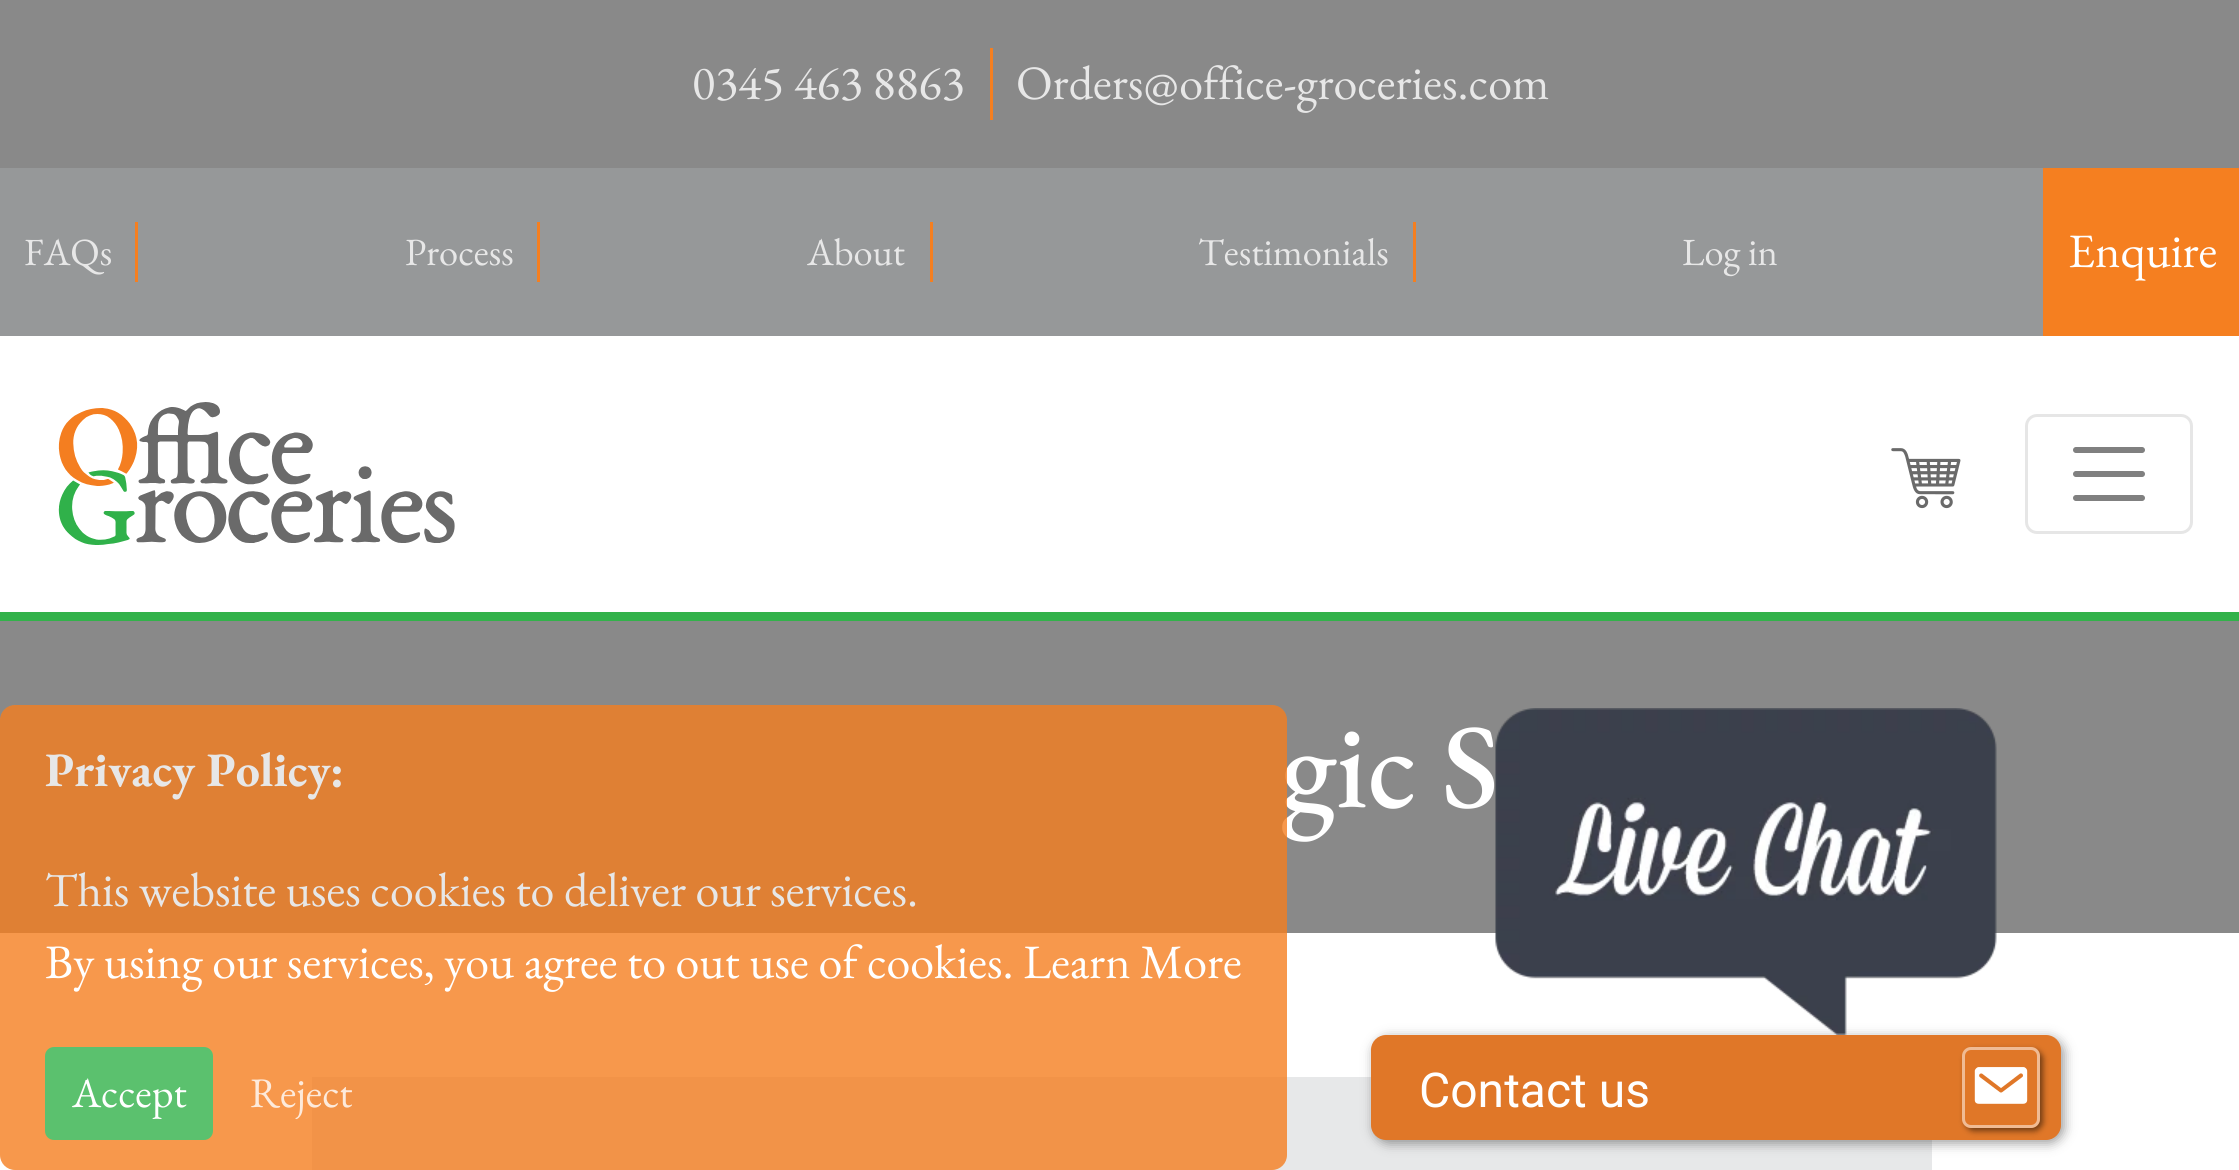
#include <cairo/cairo.h>
#include <math.h>
#include <stddef.h>

typedef struct { double x, y; const char *s; } line_t;
typedef struct { double x, y, w, h; unsigned color; } box_t;
static cairo_t *cr;

static void rgb(unsigned color)
{
	cairo_set_source_rgb(cr, (color >> 16) / 255.0, (color >> 8 & 255) / 255.0, (color & 255) / 255.0);
}

static void rrect(double x, double y, double w, double h, double r)
{
	cairo_new_sub_path(cr);
	cairo_arc(cr, x + w - r, y + h - r, r, 0, M_PI / 2);
	cairo_arc(cr, x + r, y + h - r, r, M_PI / 2, M_PI);
	cairo_arc(cr, x + r, y + r, r, M_PI, 1.5 * M_PI);
	cairo_arc(cr, x + w - r, y + r, r, 1.5 * M_PI, 2 * M_PI);
	cairo_close_path(cr);
}

static void soft_shadow(double x, double y, double w, double h, double r, double blur, double alpha)
{
	cairo_push_group_with_content(cr, CAIRO_CONTENT_ALPHA);
	cairo_set_operator(cr, CAIRO_OPERATOR_SOURCE);
	for (int i = 15; i >= -15 && fmin(w, h) + blur * i / 3 > 0; i -= 2) {
		double e = blur * i / 6;
		cairo_set_source_rgba(cr, 0, 0, 0, alpha * erfc((i - 1) / 8.5) / 2);
		rrect(x - e, y - e, w + 2 * e, h + 2 * e, fmax(0, fmin(r + e + blur * .6, fmin(w, h) / 2 + e)));
		cairo_fill(cr);
	}
	cairo_pattern_t *soft = cairo_pop_group(cr);
	cairo_mask(cr, soft);
	cairo_pattern_destroy(soft);
}

static void image(const char *path, double x, double y, double w, double h)
{
	cairo_surface_t *image = cairo_image_surface_create_from_png(path);
	cairo_save(cr);
	cairo_set_source_surface(cr, image, x, y);
	cairo_rectangle(cr, x, y, w, h);
	cairo_fill(cr);
	cairo_restore(cr);
	cairo_surface_destroy(image);
}

int main(void) {
	cairo_surface_t *surface = cairo_image_surface_create(CAIRO_FORMAT_RGB24, 2239, 1170);
	cr = cairo_create(surface);
	cairo_font_options_t *options = cairo_font_options_create();
	cairo_font_options_set_hint_metrics(options, CAIRO_HINT_METRICS_OFF);
	cairo_font_options_set_hint_style(options, CAIRO_HINT_STYLE_NONE);
	cairo_set_font_options(cr, options);
	cairo_set_miter_limit(cr, 4);
	rgb(0xffffff);
	cairo_paint(cr);
	{
		static const box_t items[] = {
			{0, 0, 2239, 168, 0x898989},
			{990, 48, 3, 72, 0xf57f20},
			{0, 168, 2043, 168, 0x969899},
			{135, 222, 3, 60, 0xf57f20},
			{537, 222, 3, 60, 0xf57f20},
			{930, 222, 3, 60, 0xf57f20},
			{1413, 222, 3, 60, 0xf57f20},
			{2043, 168, 196, 168, 0xf57f20},
			{0, 612, 2239, 9, 0x32b24a},
		};
		for (size_t i = 0; i < sizeof items / sizeof *items; i++) {
			rgb(items[i].color);
			cairo_rectangle(cr, items[i].x, items[i].y, items[i].w, items[i].h);
			cairo_fill(cr);
		}
	}
	image("img/1.png", 58, 402, 397, 143);
	image("img/2.png", 1891, 448, 70, 61);
	rrect(2026.5, 415.5, 165, 117, 10.5);
	rgb(0xe6e6e6);
	cairo_set_line_width(cr, 3);
	cairo_stroke(cr);
	cairo_new_path(cr);
	cairo_move_to(cr, 2076, 450);
	cairo_line_to(cr, 2142, 450);
	cairo_move_to(cr, 2076, 474);
	cairo_line_to(cr, 2142, 474);
	cairo_move_to(cr, 2076, 498);
	cairo_line_to(cr, 2142, 498);
	rgb(0x808080);
	cairo_set_line_width(cr, 6);
	cairo_set_line_cap(cr, CAIRO_LINE_CAP_ROUND);
	cairo_stroke(cr);
	rgb(0x898989);
	cairo_rectangle(cr, 0, 621, 2239, 312);
	cairo_fill(cr);
	rgb(0xe7e8e9);
	cairo_rectangle(cr, 312, 1077, 1620, 93);
	cairo_fill(cr);
	rgb(0x000000);
	soft_shadow(1374, 1038, 690, 105, 15, 6, 0.4);
	image("img/3.png", 1495, 708, 502, 327);
	rgb(0xe07728);
	rrect(1371, 1035, 690, 105, 15);
	cairo_fill(cr);
	cairo_save(cr);
	cairo_set_fill_rule(cr, CAIRO_FILL_RULE_EVEN_ODD);
	cairo_new_path(cr);
	cairo_move_to(cr, 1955, 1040);
	cairo_line_to(cr, 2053, 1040);
	cairo_line_to(cr, 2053, 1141);
	cairo_line_to(cr, 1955, 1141);
	cairo_close_path(cr);
	cairo_move_to(cr, 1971, 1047);
	cairo_line_to(cr, 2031, 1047);
	cairo_curve_to(cr, 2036, 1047, 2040, 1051, 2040, 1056);
	cairo_line_to(cr, 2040, 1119);
	cairo_curve_to(cr, 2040, 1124, 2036, 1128, 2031, 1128);
	cairo_line_to(cr, 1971, 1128);
	cairo_curve_to(cr, 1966, 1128, 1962, 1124, 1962, 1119);
	cairo_line_to(cr, 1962, 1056);
	cairo_curve_to(cr, 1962, 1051, 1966, 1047, 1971, 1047);
	cairo_close_path(cr);
	cairo_clip(cr);
	rgb(0x000000);
	soft_shadow(1965, 1050, 78, 81, 9, 3, 0.5);
	cairo_restore(cr);
	rrect(1963.5, 1048.5, 75, 78, 7.5);
	cairo_set_source_rgba(cr, 1, 1, 1, 0.5);
	cairo_set_line_width(cr, 3);
	cairo_set_line_cap(cr, CAIRO_LINE_CAP_BUTT);
	cairo_stroke(cr);
	image("img/4.png", 1974, 1067, 54, 37);
	cairo_select_font_face(cr, "EB Garamond", CAIRO_FONT_SLANT_NORMAL, CAIRO_FONT_WEIGHT_NORMAL);
	cairo_set_font_size(cr, 48);
	rgb(0xe7e7e7);
	cairo_move_to(cr, 692, 99);
	cairo_show_text(cr, "0345 463 8863");
	cairo_move_to(cr, 1016, 99);
	cairo_show_text(cr, "Orders@office-groceries.com");
	cairo_set_font_size(cr, 38.5);
	{
		static const line_t items[] = {
			{24, 265, "FAQs"},
			{405, 265, "Process"},
			{807, 265, "About"},
			{1198, 265, "Testimonials"},
			{1682, 265, "Log in"},
		};
		for (size_t i = 0; i < sizeof items / sizeof *items; i++) {
			cairo_move_to(cr, items[i].x, items[i].y);
			cairo_show_text(cr, items[i].s);
		}
	}
	cairo_set_font_size(cr, 48);
	rgb(0xffffff);
	cairo_move_to(cr, 2068, 267);
	cairo_show_text(cr, "Enquire");
	cairo_select_font_face(cr, "EB Garamond Medium", CAIRO_FONT_SLANT_NORMAL, CAIRO_FONT_WEIGHT_NORMAL);
	cairo_set_font_size(cr, 120);
	cairo_move_to(cr, 1281, 807);
	cairo_show_text(cr, "gic S");
	cairo_set_source_rgba(cr, 0.961, 0.498, 0.125, 0.8);
	rrect(0, 705, 1287, 465, 15);
	cairo_fill(cr);
	cairo_select_font_face(cr, "EB Garamond", CAIRO_FONT_SLANT_NORMAL, CAIRO_FONT_WEIGHT_NORMAL);
	cairo_set_font_size(cr, 42);
	rgb(0xfdeadb);
	cairo_move_to(cr, 250, 1107);
	cairo_show_text(cr, "Reject");
	rgb(0x5bc16e);
	rrect(46.5, 1048.5, 165, 90, 7.5);
	cairo_fill_preserve(cr);
	cairo_stroke(cr);
	rgb(0xffffff);
	cairo_move_to(cr, 72, 1107);
	cairo_show_text(cr, "Accept");
	cairo_set_font_size(cr, 48);
	cairo_move_to(cr, 45, 978);
	cairo_show_text(cr, "By using our services, you agree to out use of cookies. Learn More");
	rgb(0xe7e7e7);
	cairo_move_to(cr, 45, 906);
	cairo_show_text(cr, "This website uses cookies to deliver our services.");
	cairo_select_font_face(cr, "EB Garamond", CAIRO_FONT_SLANT_NORMAL, CAIRO_FONT_WEIGHT_BOLD);
	cairo_move_to(cr, 45, 786);
	cairo_show_text(cr, "Privacy Policy:");
	cairo_select_font_face(cr, "Roboto", CAIRO_FONT_SLANT_NORMAL, CAIRO_FONT_WEIGHT_NORMAL);
	rgb(0xffffff);
	cairo_move_to(cr, 1419, 1107);
	cairo_show_text(cr, "Contact us");
	cairo_surface_write_to_png(surface, "page.png");
	cairo_font_options_destroy(options);
	cairo_destroy(cr);
	cairo_surface_destroy(surface);
	return 0;
}
